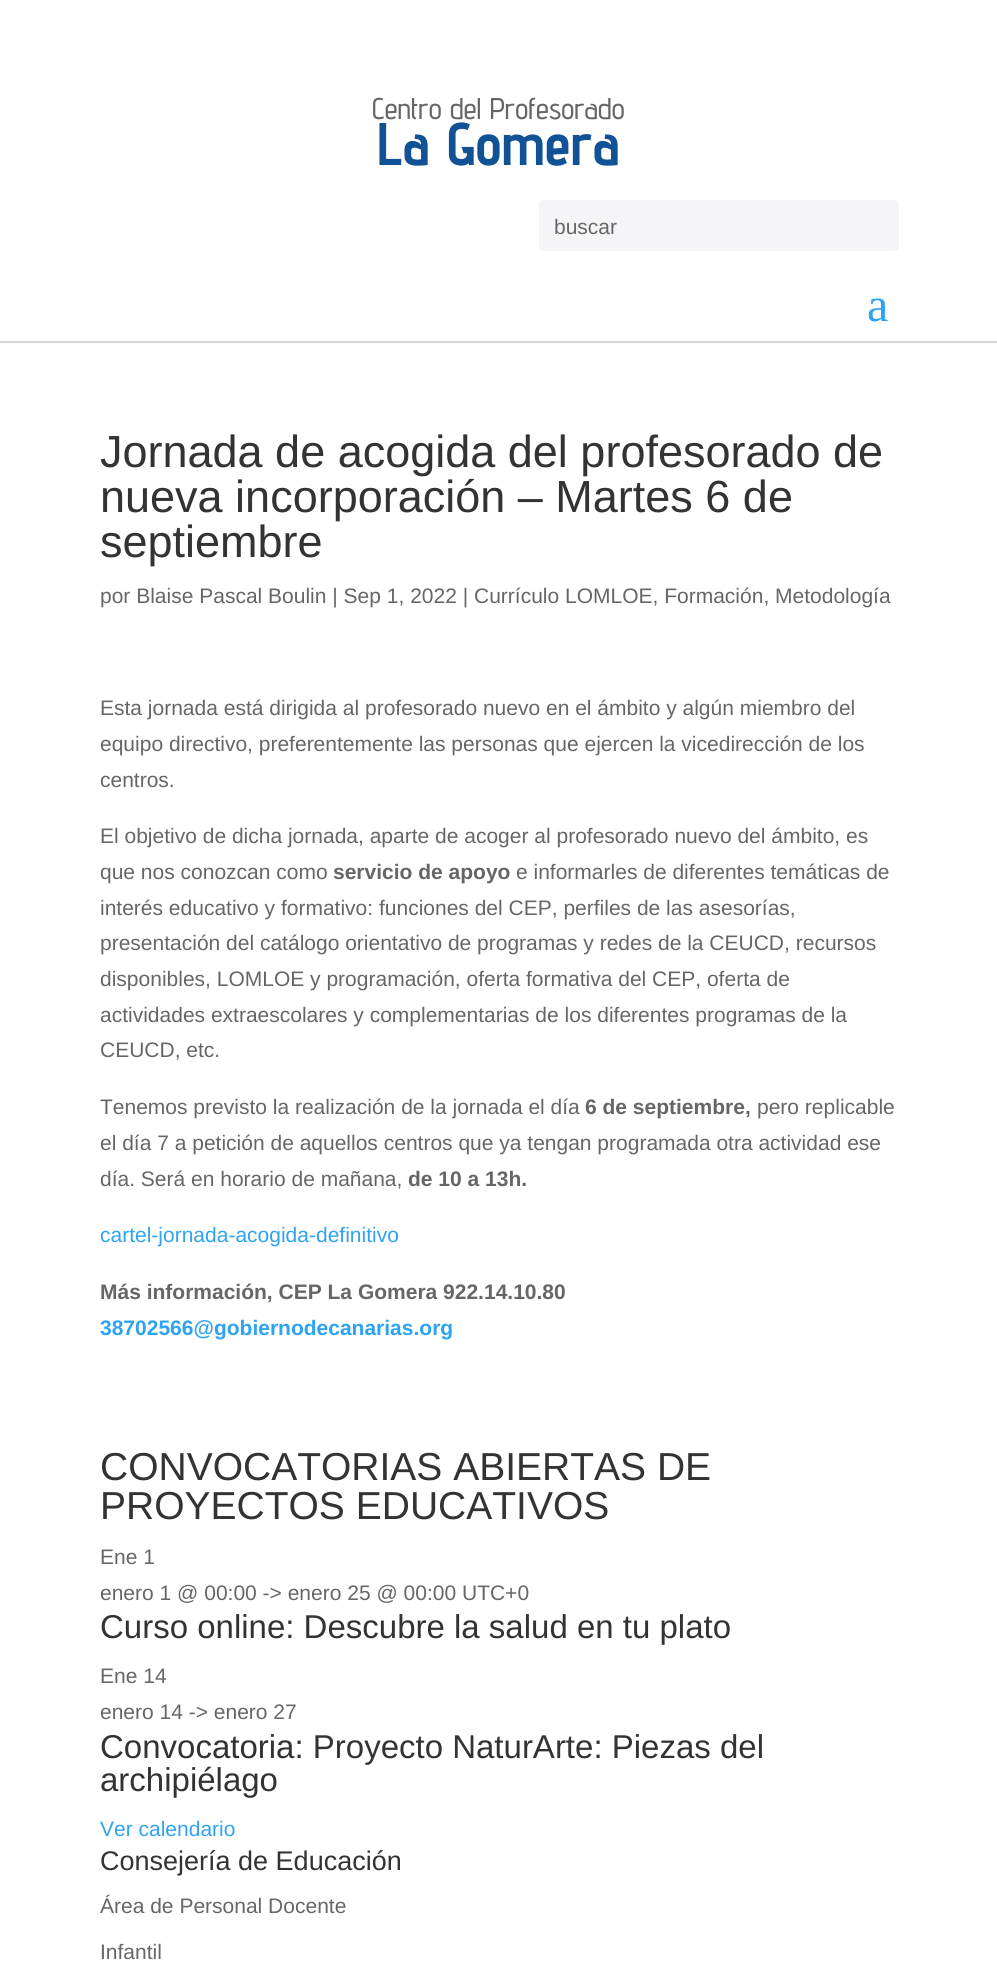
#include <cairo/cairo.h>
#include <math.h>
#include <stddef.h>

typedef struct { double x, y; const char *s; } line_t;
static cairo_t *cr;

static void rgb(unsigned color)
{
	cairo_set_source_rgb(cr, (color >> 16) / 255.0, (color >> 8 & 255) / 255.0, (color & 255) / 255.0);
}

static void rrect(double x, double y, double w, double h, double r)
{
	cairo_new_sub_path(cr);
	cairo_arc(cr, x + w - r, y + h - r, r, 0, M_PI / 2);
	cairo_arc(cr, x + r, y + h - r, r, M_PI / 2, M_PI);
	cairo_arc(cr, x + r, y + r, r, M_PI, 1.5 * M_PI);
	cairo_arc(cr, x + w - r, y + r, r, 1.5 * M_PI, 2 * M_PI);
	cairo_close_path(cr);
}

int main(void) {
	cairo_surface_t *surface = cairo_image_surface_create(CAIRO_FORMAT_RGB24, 997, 1987);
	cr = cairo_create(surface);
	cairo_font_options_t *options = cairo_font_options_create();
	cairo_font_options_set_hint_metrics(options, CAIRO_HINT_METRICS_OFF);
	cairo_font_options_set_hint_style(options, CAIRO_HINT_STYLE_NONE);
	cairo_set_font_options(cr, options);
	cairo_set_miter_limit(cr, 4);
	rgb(0xffffff);
	cairo_paint(cr);
	rgb(0xd6d6d6);
	cairo_rectangle(cr, 0, 341, 997, 2);
	cairo_fill(cr);
	rgb(0xf5f5f7);
	rrect(539, 200, 360, 51, 5);
	cairo_fill(cr);
	cairo_select_font_face(cr, "Advent Pro Medium", CAIRO_FONT_SLANT_NORMAL, CAIRO_FONT_WEIGHT_NORMAL);
	cairo_set_font_size(cr, 30);
	rgb(0x666666);
	cairo_move_to(cr, 372, 119);
	cairo_show_text(cr, "Centro del Profesorado");
	cairo_select_font_face(cr, "Advent Pro", CAIRO_FONT_SLANT_NORMAL, CAIRO_FONT_WEIGHT_BOLD);
	cairo_set_font_size(cr, 60);
	rgb(0x105295);
	cairo_move_to(cr, 377, 165);
	cairo_show_text(cr, "La Gomera");
	cairo_select_font_face(cr, "Liberation Sans", CAIRO_FONT_SLANT_NORMAL, CAIRO_FONT_WEIGHT_NORMAL);
	cairo_set_font_size(cr, 21);
	rgb(0x666666);
	cairo_move_to(cr, 554, 234);
	cairo_show_text(cr, "buscar");
	cairo_select_font_face(cr, "Liberation Serif", CAIRO_FONT_SLANT_NORMAL, CAIRO_FONT_WEIGHT_NORMAL);
	cairo_set_font_size(cr, 48);
	rgb(0x2ea3f2);
	cairo_move_to(cr, 867, 321);
	cairo_show_text(cr, "a");
	cairo_select_font_face(cr, "Liberation Sans", CAIRO_FONT_SLANT_NORMAL, CAIRO_FONT_WEIGHT_NORMAL);
	cairo_set_font_size(cr, 45);
	rgb(0x333333);
	{
		static const line_t items[] = {
			{100, 467, "Jornada de acogida del profesorado de"},
			{100, 512, "nueva incorporación – Martes 6 de"},
			{100, 557, "septiembre"},
		};
		for (size_t i = 0; i < sizeof items / sizeof *items; i++) {
			cairo_move_to(cr, items[i].x, items[i].y);
			cairo_show_text(cr, items[i].s);
		}
	}
	cairo_set_font_size(cr, 21);
	rgb(0x666666);
	{
		static const line_t items[] = {
			{100, 603, "por Blaise Pascal Boulin | Sep 1, 2022 | Currículo LOMLOE, Formación, Metodología"},
			{100, 715, "Esta jornada está dirigida al profesorado nuevo en el ámbito y algún miembro del"},
			{100, 751, "equipo directivo, preferentemente las personas que ejercen la vicedirección de los"},
			{100, 787, "centros."},
			{100, 843, "El objetivo de dicha jornada, aparte de acoger al profesorado nuevo del ámbito, es"},
			{100, 879, "que nos conozcan como"},
		};
		for (size_t i = 0; i < sizeof items / sizeof *items; i++) {
			cairo_move_to(cr, items[i].x, items[i].y);
			cairo_show_text(cr, items[i].s);
		}
	}
	cairo_select_font_face(cr, "Liberation Sans", CAIRO_FONT_SLANT_NORMAL, CAIRO_FONT_WEIGHT_BOLD);
	cairo_move_to(cr, 333, 879);
	cairo_show_text(cr, "servicio de apoyo");
	cairo_select_font_face(cr, "Liberation Sans", CAIRO_FONT_SLANT_NORMAL, CAIRO_FONT_WEIGHT_NORMAL);
	{
		static const line_t items[] = {
			{516, 879, "e informarles de diferentes temáticas de"},
			{100, 915, "interés educativo y formativo: funciones del CEP, perfiles de las asesorías,"},
			{100, 950, "presentación del catálogo orientativo de programas y redes de la CEUCD, recursos"},
			{100, 986, "disponibles, LOMLOE y programación, oferta formativa del CEP, oferta de"},
			{100, 1022, "actividades extraescolares y complementarias de los diferentes programas de la"},
			{100, 1057, "CEUCD, etc."},
			{100, 1114, "Tenemos previsto la realización de la jornada el día"},
		};
		for (size_t i = 0; i < sizeof items / sizeof *items; i++) {
			cairo_move_to(cr, items[i].x, items[i].y);
			cairo_show_text(cr, items[i].s);
		}
	}
	cairo_select_font_face(cr, "Liberation Sans", CAIRO_FONT_SLANT_NORMAL, CAIRO_FONT_WEIGHT_BOLD);
	cairo_move_to(cr, 585, 1114);
	cairo_show_text(cr, "6 de septiembre,");
	cairo_select_font_face(cr, "Liberation Sans", CAIRO_FONT_SLANT_NORMAL, CAIRO_FONT_WEIGHT_NORMAL);
	{
		static const line_t items[] = {
			{757, 1114, "pero replicable"},
			{100, 1150, "el día 7 a petición de aquellos centros que ya tengan programada otra actividad ese"},
			{100, 1186, "día. Será en horario de mañana,"},
		};
		for (size_t i = 0; i < sizeof items / sizeof *items; i++) {
			cairo_move_to(cr, items[i].x, items[i].y);
			cairo_show_text(cr, items[i].s);
		}
	}
	cairo_select_font_face(cr, "Liberation Sans", CAIRO_FONT_SLANT_NORMAL, CAIRO_FONT_WEIGHT_BOLD);
	cairo_move_to(cr, 408, 1186);
	cairo_show_text(cr, "de 10 a 13h.");
	cairo_select_font_face(cr, "Liberation Sans", CAIRO_FONT_SLANT_NORMAL, CAIRO_FONT_WEIGHT_NORMAL);
	rgb(0x2ea3f2);
	cairo_move_to(cr, 100, 1242);
	cairo_show_text(cr, "cartel-jornada-acogida-definitivo");
	cairo_select_font_face(cr, "Liberation Sans", CAIRO_FONT_SLANT_NORMAL, CAIRO_FONT_WEIGHT_BOLD);
	rgb(0x666666);
	cairo_move_to(cr, 100, 1299);
	cairo_show_text(cr, "Más información, CEP La Gomera 922.14.10.80");
	rgb(0x2ea3f2);
	cairo_move_to(cr, 100, 1335);
	cairo_show_text(cr, "38702566@gobiernodecanarias.org");
	cairo_select_font_face(cr, "Liberation Sans", CAIRO_FONT_SLANT_NORMAL, CAIRO_FONT_WEIGHT_NORMAL);
	cairo_set_font_size(cr, 39);
	rgb(0x333333);
	cairo_move_to(cr, 100, 1480);
	cairo_show_text(cr, "CONVOCATORIAS ABIERTAS DE");
	cairo_move_to(cr, 100, 1519);
	cairo_show_text(cr, "PROYECTOS EDUCATIVOS");
	cairo_set_font_size(cr, 21);
	rgb(0x666666);
	cairo_move_to(cr, 100, 1564);
	cairo_show_text(cr, "Ene 1");
	cairo_move_to(cr, 100, 1600);
	cairo_show_text(cr, "enero 1 @ 00:00 -> enero 25 @ 00:00 UTC+0");
	cairo_set_font_size(cr, 33);
	rgb(0x333333);
	cairo_move_to(cr, 100, 1638);
	cairo_show_text(cr, "Curso online: Descubre la salud en tu plato");
	cairo_set_font_size(cr, 21);
	rgb(0x666666);
	cairo_move_to(cr, 100, 1683);
	cairo_show_text(cr, "Ene 14");
	cairo_move_to(cr, 100, 1719);
	cairo_show_text(cr, "enero 14 -> enero 27");
	cairo_set_font_size(cr, 33);
	rgb(0x333333);
	cairo_move_to(cr, 100, 1758);
	cairo_show_text(cr, "Convocatoria: Proyecto NaturArte: Piezas del");
	cairo_move_to(cr, 100, 1791);
	cairo_show_text(cr, "archipiélago");
	cairo_set_font_size(cr, 21);
	rgb(0x2ea3f2);
	cairo_move_to(cr, 100, 1836);
	cairo_show_text(cr, "Ver calendario");
	cairo_set_font_size(cr, 27);
	rgb(0x333333);
	cairo_move_to(cr, 100, 1870);
	cairo_show_text(cr, "Consejería de Educación");
	cairo_set_font_size(cr, 21);
	rgb(0x666666);
	cairo_move_to(cr, 100, 1913);
	cairo_show_text(cr, "Área de Personal Docente");
	cairo_move_to(cr, 100, 1959);
	cairo_show_text(cr, "Infantil");
	cairo_surface_write_to_png(surface, "page.png");
	cairo_font_options_destroy(options);
	cairo_destroy(cr);
	cairo_surface_destroy(surface);
	return 0;
}
